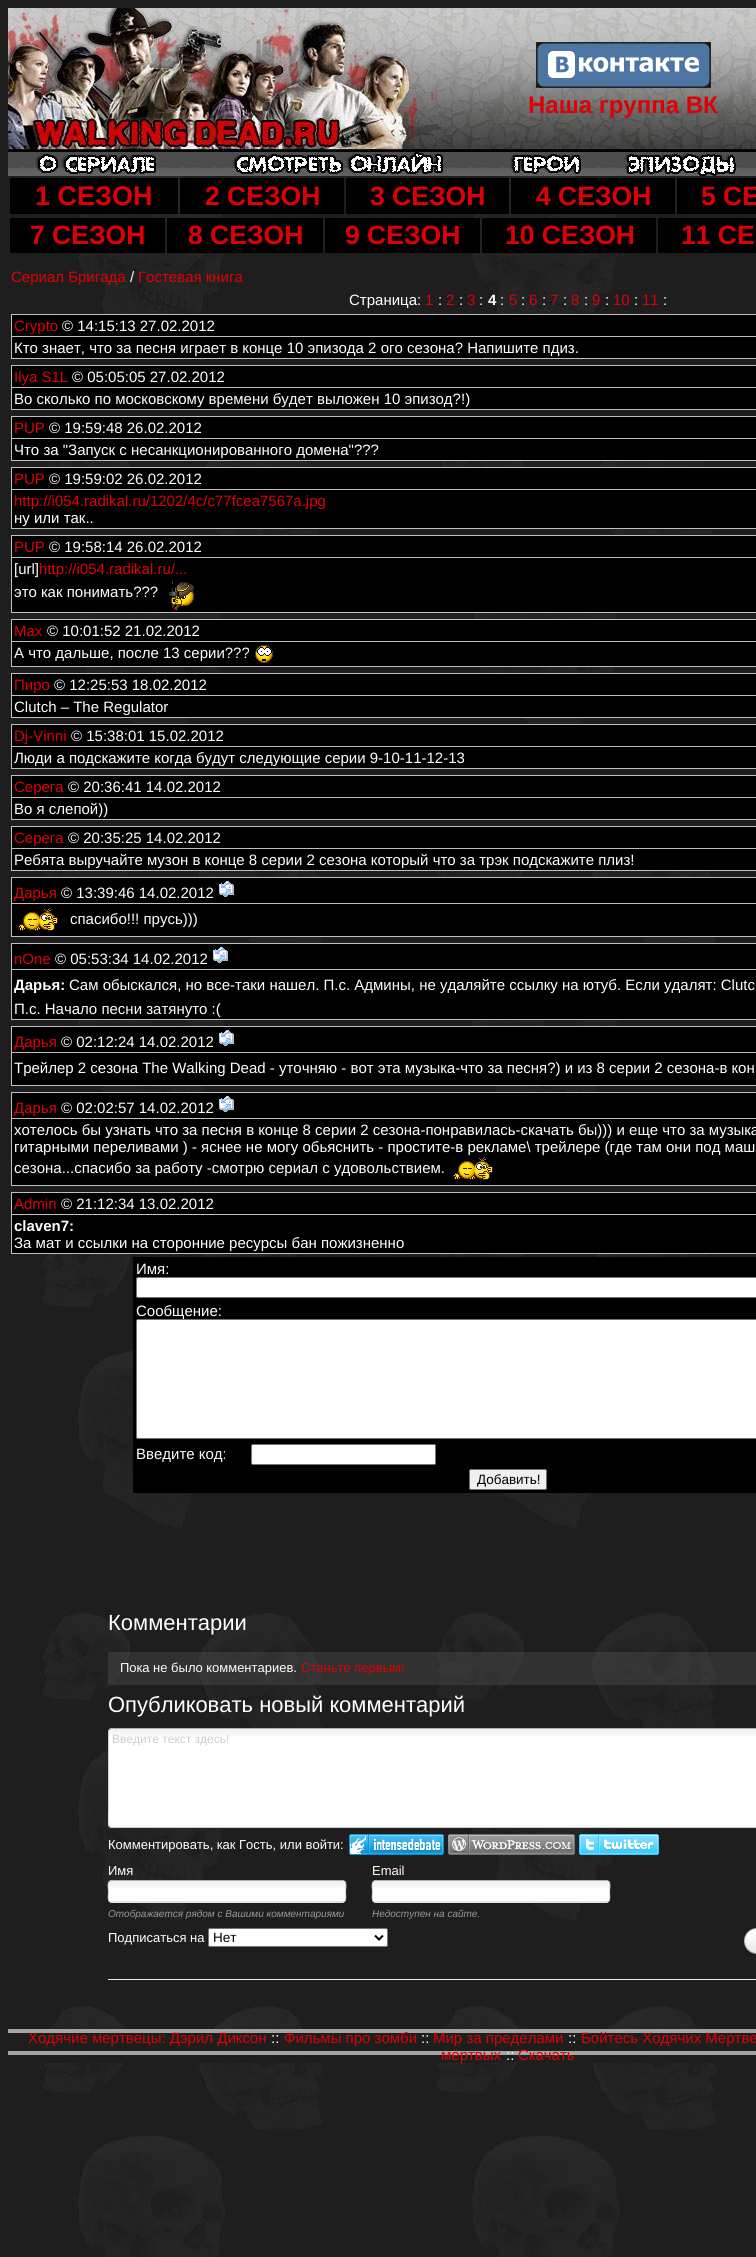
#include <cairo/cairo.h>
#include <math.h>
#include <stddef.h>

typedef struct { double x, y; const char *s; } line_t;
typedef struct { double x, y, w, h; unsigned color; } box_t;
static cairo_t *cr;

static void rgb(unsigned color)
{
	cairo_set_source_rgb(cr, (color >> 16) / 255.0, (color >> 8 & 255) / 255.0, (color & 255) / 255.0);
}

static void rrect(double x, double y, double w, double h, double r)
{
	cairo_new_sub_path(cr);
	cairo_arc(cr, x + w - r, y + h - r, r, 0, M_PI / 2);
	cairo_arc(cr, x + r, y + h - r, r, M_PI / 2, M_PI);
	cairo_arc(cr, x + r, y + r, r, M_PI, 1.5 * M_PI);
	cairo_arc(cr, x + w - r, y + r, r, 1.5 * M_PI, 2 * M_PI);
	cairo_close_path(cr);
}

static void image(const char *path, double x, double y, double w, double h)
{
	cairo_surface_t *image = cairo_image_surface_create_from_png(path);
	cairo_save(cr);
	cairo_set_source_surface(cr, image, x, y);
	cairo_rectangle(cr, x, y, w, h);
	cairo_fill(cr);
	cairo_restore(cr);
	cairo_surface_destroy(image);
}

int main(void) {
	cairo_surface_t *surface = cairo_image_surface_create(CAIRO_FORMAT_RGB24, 756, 2257);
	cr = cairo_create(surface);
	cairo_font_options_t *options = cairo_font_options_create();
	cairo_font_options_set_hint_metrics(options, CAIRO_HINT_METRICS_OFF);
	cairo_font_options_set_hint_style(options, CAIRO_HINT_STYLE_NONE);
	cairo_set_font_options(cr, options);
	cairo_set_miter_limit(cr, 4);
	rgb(0xffffff);
	cairo_paint(cr);
	image("img/1.png", 0, 0, 756, 2257);
	image("img/2.png", 8, 8, 460, 144);
	image("img/3.png", 468, 8, 288, 144);
	image("img/4.png", 536, 42, 175, 46);
	image("img/5.png", 8, 152, 748, 24);
	image("img/6.png", 34, 152, 124, 24);
	image("img/7.png", 231, 152, 216, 24);
	image("img/8.png", 509, 152, 72, 24);
	image("img/9.png", 623, 152, 115, 24);
	{
		static const box_t items[] = {
			{10, 178, 168, 36, 0x000000},
			{180, 178, 164, 36, 0x000000},
			{346, 178, 163, 36, 0x000000},
			{511, 178, 164, 36, 0x000000},
			{677, 178, 79, 36, 0x000000},
			{10, 218, 155, 35, 0x000000},
			{167, 218, 156, 35, 0x000000},
			{325, 218, 155, 35, 0x000000},
			{482, 218, 174, 35, 0x000000},
			{658, 218, 98, 35, 0x000000},
			{11, 314, 745, 45, 0xc0c0c0},
			{12, 315, 744, 21, 0x000000},
			{12, 337, 744, 21, 0x000000},
			{11, 365, 745, 45, 0xc0c0c0},
			{12, 366, 744, 21, 0x000000},
			{12, 388, 744, 21, 0x000000},
			{11, 416, 745, 45, 0xc0c0c0},
			{12, 417, 744, 21, 0x000000},
			{12, 439, 744, 21, 0x000000},
			{11, 467, 745, 62, 0xc0c0c0},
			{12, 468, 744, 21, 0x000000},
			{12, 490, 744, 38, 0x000000},
			{11, 535, 745, 78, 0xc0c0c0},
			{12, 536, 744, 21, 0x000000},
			{12, 558, 744, 54, 0x000000},
		};
		for (size_t i = 0; i < sizeof items / sizeof *items; i++) {
			rgb(items[i].color);
			cairo_rectangle(cr, items[i].x, items[i].y, items[i].w, items[i].h);
			cairo_fill(cr);
		}
	}
	image("img/10.png", 169, 581, 25, 29);
	{
		static const box_t items[] = {
			{11, 619, 745, 48, 0xc0c0c0},
			{12, 620, 744, 21, 0x000000},
			{12, 642, 744, 24, 0x000000},
		};
		for (size_t i = 0; i < sizeof items / sizeof *items; i++) {
			rgb(items[i].color);
			cairo_rectangle(cr, items[i].x, items[i].y, items[i].w, items[i].h);
			cairo_fill(cr);
		}
	}
	image("img/11.png", 255, 645, 18, 18);
	{
		static const box_t items[] = {
			{11, 673, 745, 45, 0xc0c0c0},
			{12, 674, 744, 21, 0x000000},
			{12, 696, 744, 21, 0x000000},
			{11, 724, 745, 45, 0xc0c0c0},
			{12, 725, 744, 21, 0x000000},
			{12, 747, 744, 21, 0x000000},
			{11, 775, 745, 45, 0xc0c0c0},
			{12, 776, 744, 21, 0x000000},
			{12, 798, 744, 21, 0x000000},
			{11, 826, 745, 45, 0xc0c0c0},
			{12, 827, 744, 21, 0x000000},
			{12, 849, 744, 21, 0x000000},
			{11, 877, 745, 60, 0xc0c0c0},
			{12, 878, 744, 25, 0x000000},
		};
		for (size_t i = 0; i < sizeof items / sizeof *items; i++) {
			rgb(items[i].color);
			cairo_rectangle(cr, items[i].x, items[i].y, items[i].w, items[i].h);
			cairo_fill(cr);
		}
	}
	image("img/12.png", 219, 881, 15, 16);
	cairo_rectangle(cr, 12, 904, 744, 32);
	cairo_fill(cr);
	image("img/13.png", 18, 908, 40, 23);
	rgb(0xc0c0c0);
	cairo_rectangle(cr, 11, 943, 745, 77);
	cairo_fill(cr);
	rgb(0x000000);
	cairo_rectangle(cr, 12, 944, 744, 25);
	cairo_fill(cr);
	image("img/12.png", 213, 947, 15, 16);
	{
		static const box_t items[] = {
			{12, 970, 744, 49, 0x000000},
			{11, 1026, 745, 60, 0xc0c0c0},
			{12, 1027, 744, 25, 0x000000},
		};
		for (size_t i = 0; i < sizeof items / sizeof *items; i++) {
			rgb(items[i].color);
			cairo_rectangle(cr, items[i].x, items[i].y, items[i].w, items[i].h);
			cairo_fill(cr);
		}
	}
	image("img/12.png", 219, 1030, 15, 16);
	{
		static const box_t items[] = {
			{12, 1053, 744, 32, 0x000000},
			{11, 1092, 745, 94, 0xc0c0c0},
			{12, 1093, 744, 25, 0x000000},
		};
		for (size_t i = 0; i < sizeof items / sizeof *items; i++) {
			rgb(items[i].color);
			cairo_rectangle(cr, items[i].x, items[i].y, items[i].w, items[i].h);
			cairo_fill(cr);
		}
	}
	image("img/12.png", 219, 1096, 15, 16);
	cairo_rectangle(cr, 12, 1119, 744, 66);
	cairo_fill(cr);
	image("img/13.png", 453, 1157, 40, 23);
	{
		static const box_t items[] = {
			{11, 1192, 745, 62, 0xc0c0c0},
			{12, 1193, 744, 21, 0x000000},
			{12, 1215, 744, 38, 0x000000},
			{133, 1257, 623, 236, 0x000000},
		};
		for (size_t i = 0; i < sizeof items / sizeof *items; i++) {
			rgb(items[i].color);
			cairo_rectangle(cr, items[i].x, items[i].y, items[i].w, items[i].h);
			cairo_fill(cr);
		}
	}
	rgb(0xffffff);
	rrect(136.5, 1277.5, 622, 20, 1.5);
	cairo_fill_preserve(cr);
	rgb(0x767676);
	cairo_set_line_width(cr, 1);
	cairo_stroke(cr);
	rgb(0xffffff);
	rrect(136.5, 1319.5, 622, 119, 1.5);
	cairo_fill_preserve(cr);
	rgb(0x767676);
	cairo_stroke(cr);
	rgb(0xffffff);
	rrect(251.5, 1444.5, 184, 20, 1.5);
	cairo_fill_preserve(cr);
	rgb(0x767676);
	cairo_stroke(cr);
	rgb(0xefefef);
	rrect(469.5, 1469.5, 77, 20, 1.5);
	cairo_fill_preserve(cr);
	rgb(0x767676);
	cairo_stroke(cr);
	cairo_set_source_rgba(cr, 0.604, 0.604, 0.604, 0.15);
	cairo_rectangle(cr, 108, 1652, 648, 33);
	cairo_fill(cr);
	rgb(0xffffff);
	rrect(108, 1728, 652, 100, 4);
	cairo_fill(cr);
	image("img/14.png", 109, 1729, 647, 7);
	cairo_new_path(cr);
	cairo_move_to(cr, 109.5, 1729.5);
	cairo_line_to(cr, 112, 1728.5);
	cairo_line_to(cr, 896, 1728.5);
	cairo_line_to(cr, 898.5, 1729.5);
	rgb(0xb0b0b0);
	cairo_stroke(cr);
	cairo_save(cr);
	cairo_rectangle(cr, 108, 1728, 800, 104);
	cairo_clip(cr);
	cairo_new_path(cr);
	cairo_move_to(cr, 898.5, 1729.5);
	cairo_line_to(cr, 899.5, 1732);
	cairo_line_to(cr, 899.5, 1808.5);
	cairo_curve_to(cr, 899.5, 1815.5, 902, 1827.5, 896, 1827.5);
	cairo_line_to(cr, 112, 1827.5);
	cairo_curve_to(cr, 106, 1827.5, 108.5, 1815.5, 108.5, 1808.5);
	cairo_line_to(cr, 108.5, 1732);
	cairo_line_to(cr, 109.5, 1729.5);
	rgb(0xcccccc);
	cairo_stroke(cr);
	cairo_restore(cr);
	image("img/15.png", 349, 1834, 95, 21);
	image("img/16.png", 448, 1834, 127, 21);
	image("img/17.png", 579, 1834, 80, 21);
	rgb(0xffffff);
	rrect(108, 1880, 238, 23, 4);
	cairo_fill(cr);
	image("img/18.png", 109, 1881, 237, 7);
	cairo_new_path(cr);
	cairo_move_to(cr, 109.5, 1881.5);
	cairo_curve_to(cr, 110, 1881, 111, 1880.5, 112, 1880.5);
	cairo_line_to(cr, 342, 1880.5);
	cairo_curve_to(cr, 343, 1880.5, 344, 1881, 344.5, 1881.5);
	rgb(0xb0b0b0);
	cairo_stroke(cr);
	cairo_new_path(cr);
	cairo_move_to(cr, 344.5, 1881.5);
	cairo_curve_to(cr, 347, 1884, 345.5, 1889, 345.5, 1891.5);
	cairo_curve_to(cr, 345.5, 1894.5, 347, 1900.5, 343.5, 1902);
	cairo_line_to(cr, 110.5, 1902);
	cairo_curve_to(cr, 107, 1900.5, 108.5, 1894.5, 108.5, 1891.5);
	cairo_curve_to(cr, 108.5, 1889, 107, 1884, 109.5, 1881.5);
	rgb(0xcccccc);
	cairo_stroke(cr);
	rgb(0xffffff);
	rrect(372, 1880, 238, 23, 4);
	cairo_fill(cr);
	image("img/18.png", 373, 1881, 237, 7);
	cairo_new_path(cr);
	cairo_move_to(cr, 373.5, 1881.5);
	cairo_curve_to(cr, 374, 1881, 375, 1880.5, 376, 1880.5);
	cairo_line_to(cr, 606, 1880.5);
	cairo_curve_to(cr, 607, 1880.5, 608, 1881, 608.5, 1881.5);
	rgb(0xb0b0b0);
	cairo_stroke(cr);
	cairo_new_path(cr);
	cairo_move_to(cr, 608.5, 1881.5);
	cairo_curve_to(cr, 611, 1884, 609.5, 1889, 609.5, 1891.5);
	cairo_curve_to(cr, 609.5, 1894.5, 611, 1900.5, 607.5, 1902);
	cairo_line_to(cr, 374.5, 1902);
	cairo_curve_to(cr, 371, 1900.5, 372.5, 1894.5, 372.5, 1891.5);
	cairo_curve_to(cr, 372.5, 1889, 371, 1884, 373.5, 1881.5);
	rgb(0xcccccc);
	cairo_stroke(cr);
	rgb(0xffffff);
	rrect(208.5, 1928.5, 179, 18, 1.5);
	cairo_fill_preserve(cr);
	rgb(0x767676);
	cairo_stroke(cr);
	cairo_new_path(cr);
	cairo_move_to(cr, 375, 1935.5);
	cairo_line_to(cr, 379, 1939.5);
	cairo_line_to(cr, 383, 1935.5);
	rgb(0x000000);
	cairo_set_line_width(cr, 2);
	cairo_stroke(cr);
	image("img/19.png", 744, 1928, 12, 26);
	rgb(0xeeeeee);
	cairo_rectangle(cr, 108, 1979, 648, 1);
	cairo_fill(cr);
	image("img/20.png", 8, 2029, 748, 34);
	cairo_select_font_face(cr, "Liberation Sans", CAIRO_FONT_SLANT_NORMAL, CAIRO_FONT_WEIGHT_BOLD);
	cairo_set_font_size(cr, 24);
	rgb(0xdf0005);
	cairo_move_to(cr, 528, 113);
	cairo_show_text(cr, "Наша группа ВК");
	cairo_set_font_size(cr, 27);
	cairo_move_to(cr, 35, 205);
	cairo_show_text(cr, "1 СЕЗОН");
	cairo_set_font_size(cr, 26.5);
	{
		static const line_t items[] = {
			{205, 205, "2 СЕЗОН"},
			{370, 205, "3 СЕЗОН"},
			{536, 205, "4 СЕЗОН"},
			{701, 205, "5 СЕ"},
			{30, 244, "7 СЕЗОН"},
			{188, 244, "8 СЕЗОН"},
			{345, 244, "9 СЕЗОН"},
			{505, 244, "10 СЕЗОН"},
			{681, 244, "11 СЕ"},
		};
		for (size_t i = 0; i < sizeof items / sizeof *items; i++) {
			cairo_move_to(cr, items[i].x, items[i].y);
			cairo_show_text(cr, items[i].s);
		}
	}
	cairo_select_font_face(cr, "Liberation Sans", CAIRO_FONT_SLANT_NORMAL, CAIRO_FONT_WEIGHT_NORMAL);
	cairo_set_font_size(cr, 15);
	cairo_move_to(cr, 11, 282);
	cairo_show_text(cr, "Сериал Бригада");
	rgb(0xffffff);
	cairo_move_to(cr, 130, 282);
	cairo_show_text(cr, "/");
	rgb(0xdf0005);
	cairo_move_to(cr, 138, 282);
	cairo_show_text(cr, "Гостевая книга");
	rgb(0xffffff);
	cairo_move_to(cr, 349, 305);
	cairo_show_text(cr, "Страница:");
	rgb(0xdf0005);
	cairo_move_to(cr, 425, 305);
	cairo_show_text(cr, "1");
	rgb(0xffffff);
	cairo_move_to(cr, 438, 305);
	cairo_show_text(cr, ":");
	rgb(0xdf0005);
	cairo_move_to(cr, 446, 305);
	cairo_show_text(cr, "2");
	rgb(0xffffff);
	cairo_move_to(cr, 459, 305);
	cairo_show_text(cr, ":");
	rgb(0xdf0005);
	cairo_move_to(cr, 467, 305);
	cairo_show_text(cr, "3");
	rgb(0xffffff);
	cairo_move_to(cr, 479, 305);
	cairo_show_text(cr, ":");
	cairo_select_font_face(cr, "Liberation Sans", CAIRO_FONT_SLANT_NORMAL, CAIRO_FONT_WEIGHT_BOLD);
	cairo_move_to(cr, 488, 305);
	cairo_show_text(cr, "4");
	cairo_select_font_face(cr, "Liberation Sans", CAIRO_FONT_SLANT_NORMAL, CAIRO_FONT_WEIGHT_NORMAL);
	cairo_move_to(cr, 500, 305);
	cairo_show_text(cr, ":");
	rgb(0xdf0005);
	cairo_move_to(cr, 509, 305);
	cairo_show_text(cr, "5");
	rgb(0xffffff);
	cairo_move_to(cr, 521, 305);
	cairo_show_text(cr, ":");
	rgb(0xdf0005);
	cairo_move_to(cr, 529, 305);
	cairo_show_text(cr, "6");
	rgb(0xffffff);
	cairo_move_to(cr, 542, 305);
	cairo_show_text(cr, ":");
	rgb(0xdf0005);
	cairo_move_to(cr, 550, 305);
	cairo_show_text(cr, "7");
	rgb(0xffffff);
	cairo_move_to(cr, 563, 305);
	cairo_show_text(cr, ":");
	rgb(0xdf0005);
	cairo_move_to(cr, 571, 305);
	cairo_show_text(cr, "8");
	rgb(0xffffff);
	cairo_move_to(cr, 584, 305);
	cairo_show_text(cr, ":");
	rgb(0xdf0005);
	cairo_move_to(cr, 592, 305);
	cairo_show_text(cr, "9");
	rgb(0xffffff);
	cairo_move_to(cr, 605, 305);
	cairo_show_text(cr, ":");
	rgb(0xdf0005);
	cairo_move_to(cr, 613, 305);
	cairo_show_text(cr, "10");
	rgb(0xffffff);
	cairo_move_to(cr, 634, 305);
	cairo_show_text(cr, ":");
	rgb(0xdf0005);
	cairo_move_to(cr, 642, 305);
	cairo_show_text(cr, "11");
	rgb(0xffffff);
	cairo_move_to(cr, 663, 305);
	cairo_show_text(cr, ":");
	rgb(0xdf0005);
	cairo_move_to(cr, 14, 331);
	cairo_show_text(cr, "Crypto");
	rgb(0xffffff);
	cairo_move_to(cr, 62, 331);
	cairo_show_text(cr, "© 14:15:13 27.02.2012");
	cairo_move_to(cr, 14, 353);
	cairo_show_text(cr, "Кто знает, что за песня играет в конце 10 эпизода 2 ого сезона? Напишите пдиз.");
	rgb(0xdf0005);
	cairo_move_to(cr, 14, 382);
	cairo_show_text(cr, "Ilya S1L");
	rgb(0xffffff);
	cairo_move_to(cr, 72, 382);
	cairo_show_text(cr, "© 05:05:05 27.02.2012");
	cairo_move_to(cr, 14, 404);
	cairo_show_text(cr, "Во сколько по московскому времени будет выложен 10 эпизод?!)");
	rgb(0xdf0005);
	cairo_move_to(cr, 14, 433);
	cairo_show_text(cr, "PUP");
	rgb(0xffffff);
	cairo_move_to(cr, 49, 433);
	cairo_show_text(cr, "© 19:59:48 26.02.2012");
	cairo_move_to(cr, 14, 455);
	cairo_show_text(cr, "Что за \"Запуск с несанкционированного домена\"?\077?");
	rgb(0xdf0005);
	cairo_move_to(cr, 14, 484);
	cairo_show_text(cr, "PUP");
	rgb(0xffffff);
	cairo_move_to(cr, 49, 484);
	cairo_show_text(cr, "© 19:59:02 26.02.2012");
	rgb(0xdf0005);
	cairo_move_to(cr, 14, 506);
	cairo_show_text(cr, "http://i054.radikal.ru/1202/4c/c77fcea7567a.jpg");
	rgb(0xffffff);
	cairo_move_to(cr, 14, 523);
	cairo_show_text(cr, "ну или так..");
	rgb(0xdf0005);
	cairo_move_to(cr, 14, 552);
	cairo_show_text(cr, "PUP");
	rgb(0xffffff);
	cairo_move_to(cr, 49, 552);
	cairo_show_text(cr, "© 19:58:14 26.02.2012");
	cairo_move_to(cr, 14, 574);
	cairo_show_text(cr, "[url]");
	rgb(0xdf0005);
	cairo_move_to(cr, 39, 574);
	cairo_show_text(cr, "http://i054.radikal.ru/...");
	rgb(0xffffff);
	cairo_move_to(cr, 14, 597);
	cairo_show_text(cr, "это как понимать?\077?");
	rgb(0xdf0005);
	cairo_move_to(cr, 14, 636);
	cairo_show_text(cr, "Max");
	rgb(0xffffff);
	cairo_move_to(cr, 47, 636);
	cairo_show_text(cr, "© 10:01:52 21.02.2012");
	cairo_move_to(cr, 14, 658);
	cairo_show_text(cr, "А что дальше, после 13 серии?\077?");
	rgb(0xdf0005);
	cairo_move_to(cr, 14, 690);
	cairo_show_text(cr, "Пиро");
	rgb(0xffffff);
	cairo_move_to(cr, 54, 690);
	cairo_show_text(cr, "© 12:25:53 18.02.2012");
	cairo_move_to(cr, 14, 712);
	cairo_show_text(cr, "Clutch – The Regulator");
	rgb(0xdf0005);
	cairo_move_to(cr, 14, 741);
	cairo_show_text(cr, "Dj-Vinni");
	rgb(0xffffff);
	cairo_move_to(cr, 71, 741);
	cairo_show_text(cr, "© 15:38:01 15.02.2012");
	cairo_move_to(cr, 14, 763);
	cairo_show_text(cr, "Люди а подскажите когда будут следующие серии 9-10-11-12-13");
	rgb(0xdf0005);
	cairo_move_to(cr, 14, 792);
	cairo_show_text(cr, "Серега");
	rgb(0xffffff);
	cairo_move_to(cr, 68, 792);
	cairo_show_text(cr, "© 20:36:41 14.02.2012");
	cairo_move_to(cr, 14, 814);
	cairo_show_text(cr, "Во я слепой))");
	rgb(0xdf0005);
	cairo_move_to(cr, 14, 843);
	cairo_show_text(cr, "Серега");
	rgb(0xffffff);
	cairo_move_to(cr, 68, 843);
	cairo_show_text(cr, "© 20:35:25 14.02.2012");
	cairo_move_to(cr, 14, 865);
	cairo_show_text(cr, "Ребята выручайте музон в конце 8 серии 2 сезона который что за трэк подскажите плиз!");
	rgb(0xdf0005);
	cairo_move_to(cr, 14, 898);
	cairo_show_text(cr, "Дарья");
	rgb(0xffffff);
	cairo_move_to(cr, 61, 898);
	cairo_show_text(cr, "© 13:39:46 14.02.2012");
	cairo_move_to(cr, 70, 924);
	cairo_show_text(cr, "спасибо!!! прусь)))");
	rgb(0xdf0005);
	cairo_move_to(cr, 14, 964);
	cairo_show_text(cr, "nOne");
	rgb(0xffffff);
	cairo_move_to(cr, 55, 964);
	cairo_show_text(cr, "© 05:53:34 14.02.2012");
	cairo_select_font_face(cr, "Liberation Sans", CAIRO_FONT_SLANT_NORMAL, CAIRO_FONT_WEIGHT_BOLD);
	cairo_move_to(cr, 14, 990);
	cairo_show_text(cr, "Дарья:");
	cairo_select_font_face(cr, "Liberation Sans", CAIRO_FONT_SLANT_NORMAL, CAIRO_FONT_WEIGHT_NORMAL);
	cairo_move_to(cr, 69, 990);
	cairo_show_text(cr, "Сам обыскался, но все-таки нашел. П.с. Админы, не удаляйте ссылку на ютуб. Если удалят: Clutc");
	cairo_move_to(cr, 14, 1014);
	cairo_show_text(cr, "П.с. Начало песни затянуто :(");
	rgb(0xdf0005);
	cairo_move_to(cr, 14, 1047);
	cairo_show_text(cr, "Дарья");
	rgb(0xffffff);
	cairo_move_to(cr, 61, 1047);
	cairo_show_text(cr, "© 02:12:24 14.02.2012");
	cairo_move_to(cr, 14, 1073);
	cairo_show_text(cr, "Трейлер 2 сезона The Walking Dead - уточняю - вот эта музыка-что за песня?) и из 8 серии 2 сезона-в кон");
	rgb(0xdf0005);
	cairo_move_to(cr, 14, 1113);
	cairo_show_text(cr, "Дарья");
	rgb(0xffffff);
	{
		static const line_t items[] = {
			{61, 1113, "© 02:02:57 14.02.2012"},
			{14, 1135, "хотелось бы узнать что за песня в конце 8 серии 2 сезона-понравилась-скачать бы))) и еще что за музыка"},
			{14, 1152, "гитарными переливами ) - яснее не могу обьяснить - простите-в рекламе\\ трейлере (где там они под маш"},
			{14, 1173, "сезона...спасибо за работу -смотрю сериал с удовольствием."},
		};
		for (size_t i = 0; i < sizeof items / sizeof *items; i++) {
			cairo_move_to(cr, items[i].x, items[i].y);
			cairo_show_text(cr, items[i].s);
		}
	}
	rgb(0xdf0005);
	cairo_move_to(cr, 14, 1209);
	cairo_show_text(cr, "Admin");
	rgb(0xffffff);
	cairo_move_to(cr, 61, 1209);
	cairo_show_text(cr, "© 21:12:34 13.02.2012");
	cairo_select_font_face(cr, "Liberation Sans", CAIRO_FONT_SLANT_NORMAL, CAIRO_FONT_WEIGHT_BOLD);
	cairo_move_to(cr, 14, 1231);
	cairo_show_text(cr, "claven7:");
	cairo_select_font_face(cr, "Liberation Sans", CAIRO_FONT_SLANT_NORMAL, CAIRO_FONT_WEIGHT_NORMAL);
	{
		static const line_t items[] = {
			{14, 1248, "За мат и ссылки на сторонние ресурсы бан пожизненно"},
			{136, 1274, "Имя:"},
			{136, 1316, "Сообщение:"},
			{136, 1459, "Введите код:"},
		};
		for (size_t i = 0; i < sizeof items / sizeof *items; i++) {
			cairo_move_to(cr, items[i].x, items[i].y);
			cairo_show_text(cr, items[i].s);
		}
	}
	cairo_set_font_size(cr, 13.5);
	rgb(0x000000);
	cairo_move_to(cr, 477, 1484);
	cairo_show_text(cr, "Добавить!");
	cairo_set_font_size(cr, 22);
	rgb(0xffffff);
	cairo_move_to(cr, 108, 1630);
	cairo_show_text(cr, "Комментарии");
	cairo_set_font_size(cr, 13);
	cairo_move_to(cr, 120, 1672);
	cairo_show_text(cr, "Пока не было комментариев.");
	rgb(0xdf0005);
	cairo_move_to(cr, 301, 1672);
	cairo_show_text(cr, "Станьте первым!");
	cairo_set_font_size(cr, 22);
	rgb(0xffffff);
	cairo_move_to(cr, 108, 1712);
	cairo_show_text(cr, "Опубликовать новый комментарий");
	cairo_set_font_size(cr, 12);
	rgb(0xcccccc);
	cairo_move_to(cr, 112, 1743);
	cairo_show_text(cr, "Введите текст здесь!");
	cairo_set_font_size(cr, 13);
	rgb(0xffffff);
	{
		static const line_t items[] = {
			{108, 1849, "Комментировать, как Гость, или войти:"},
			{108, 1875, "Имя"},
			{372, 1875, "Email"},
		};
		for (size_t i = 0; i < sizeof items / sizeof *items; i++) {
			cairo_move_to(cr, items[i].x, items[i].y);
			cairo_show_text(cr, items[i].s);
		}
	}
	cairo_select_font_face(cr, "Liberation Sans", CAIRO_FONT_SLANT_ITALIC, CAIRO_FONT_WEIGHT_NORMAL);
	cairo_set_font_size(cr, 10);
	rgb(0x999999);
	cairo_move_to(cr, 108, 1917);
	cairo_show_text(cr, "Отображается рядом с Вашими комментариями");
	cairo_move_to(cr, 372, 1917);
	cairo_show_text(cr, "Недоступен на сайте.");
	cairo_select_font_face(cr, "Liberation Sans", CAIRO_FONT_SLANT_NORMAL, CAIRO_FONT_WEIGHT_NORMAL);
	cairo_set_font_size(cr, 13);
	rgb(0xffffff);
	cairo_move_to(cr, 108, 1942);
	cairo_show_text(cr, "Подписаться на");
	cairo_set_font_size(cr, 13.5);
	rgb(0x000000);
	cairo_move_to(cr, 213, 1942);
	cairo_show_text(cr, "Нет");
	cairo_set_font_size(cr, 15);
	rgb(0xdf0005);
	cairo_move_to(cr, 28, 2043);
	cairo_show_text(cr, "Ходячие мертвецы: Дэрил Диксон");
	rgb(0xffffff);
	cairo_move_to(cr, 271, 2043);
	cairo_show_text(cr, "::");
	rgb(0xdf0005);
	cairo_move_to(cr, 284, 2043);
	cairo_show_text(cr, "Фильмы про зомби");
	rgb(0xffffff);
	cairo_move_to(cr, 421, 2043);
	cairo_show_text(cr, "::");
	rgb(0xdf0005);
	cairo_move_to(cr, 433, 2043);
	cairo_show_text(cr, "Мир за пределами");
	rgb(0xffffff);
	cairo_move_to(cr, 568, 2043);
	cairo_show_text(cr, "::");
	rgb(0xdf0005);
	cairo_move_to(cr, 581, 2043);
	cairo_show_text(cr, "Бойтесь Ходячих Мертве");
	cairo_move_to(cr, 441, 2060);
	cairo_show_text(cr, "мёртвых");
	rgb(0xffffff);
	cairo_move_to(cr, 506, 2060);
	cairo_show_text(cr, "::");
	rgb(0xdf0005);
	cairo_move_to(cr, 518, 2060);
	cairo_show_text(cr, "Скачать");
	cairo_surface_write_to_png(surface, "page.png");
	cairo_font_options_destroy(options);
	cairo_destroy(cr);
	cairo_surface_destroy(surface);
	return 0;
}
